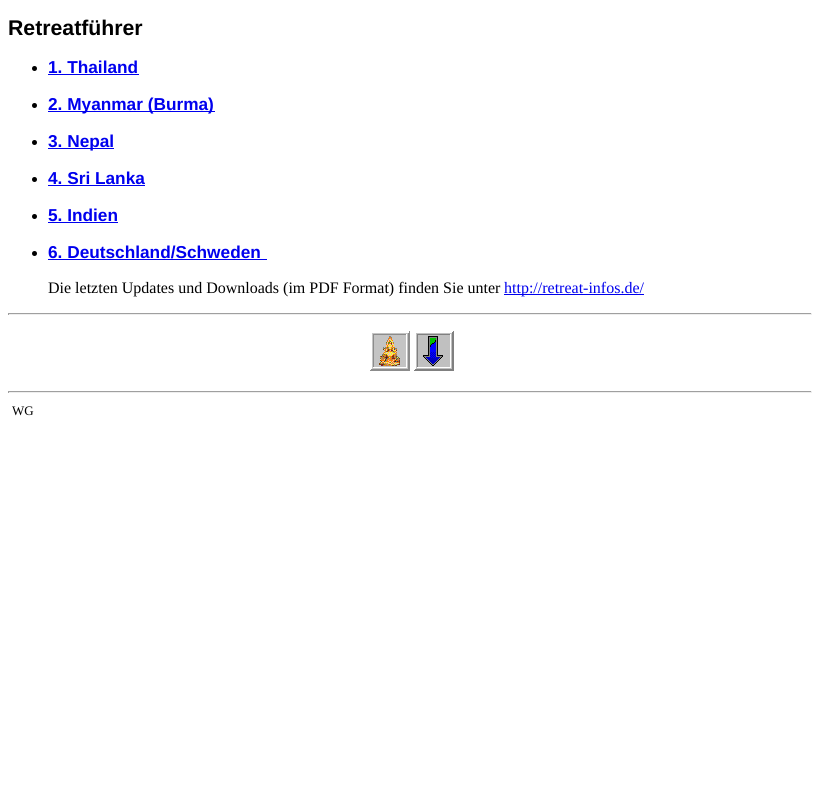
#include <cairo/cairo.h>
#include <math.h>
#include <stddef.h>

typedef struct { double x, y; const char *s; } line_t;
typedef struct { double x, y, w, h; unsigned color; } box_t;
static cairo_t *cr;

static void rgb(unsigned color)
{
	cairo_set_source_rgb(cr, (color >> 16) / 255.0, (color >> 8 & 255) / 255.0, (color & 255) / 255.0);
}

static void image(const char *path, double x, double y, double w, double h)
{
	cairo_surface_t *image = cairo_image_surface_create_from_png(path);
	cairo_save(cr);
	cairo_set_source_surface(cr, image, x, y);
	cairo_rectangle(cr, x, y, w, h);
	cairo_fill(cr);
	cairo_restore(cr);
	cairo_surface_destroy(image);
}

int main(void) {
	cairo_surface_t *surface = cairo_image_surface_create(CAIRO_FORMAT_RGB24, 820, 793);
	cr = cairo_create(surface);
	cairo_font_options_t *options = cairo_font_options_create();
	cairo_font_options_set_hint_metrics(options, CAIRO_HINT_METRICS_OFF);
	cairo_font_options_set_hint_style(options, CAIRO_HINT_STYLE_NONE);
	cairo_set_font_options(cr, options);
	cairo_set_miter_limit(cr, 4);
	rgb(0xffffff);
	cairo_paint(cr);
	rgb(0x000000);
	cairo_arc(cr, 34.5, 68.5, 2.5, 0, 2 * M_PI);
	cairo_fill(cr);
	rgb(0x0000ee);
	cairo_rectangle(cr, 48, 74, 91, 1);
	cairo_fill(cr);
	rgb(0x000000);
	cairo_arc(cr, 34.5, 105.5, 2.5, 0, 2 * M_PI);
	cairo_fill(cr);
	rgb(0x0000ee);
	cairo_rectangle(cr, 48, 111, 167, 1);
	cairo_fill(cr);
	rgb(0x000000);
	cairo_arc(cr, 34.5, 142.5, 2.5, 0, 2 * M_PI);
	cairo_fill(cr);
	rgb(0x0000ee);
	cairo_rectangle(cr, 48, 148, 66, 1);
	cairo_fill(cr);
	rgb(0x000000);
	cairo_arc(cr, 34.5, 179.5, 2.5, 0, 2 * M_PI);
	cairo_fill(cr);
	rgb(0x0000ee);
	cairo_rectangle(cr, 48, 185, 97, 1);
	cairo_fill(cr);
	rgb(0x000000);
	cairo_arc(cr, 34.5, 216.5, 2.5, 0, 2 * M_PI);
	cairo_fill(cr);
	rgb(0x0000ee);
	cairo_rectangle(cr, 48, 222, 70, 1);
	cairo_fill(cr);
	rgb(0x000000);
	cairo_arc(cr, 34.5, 253.5, 2.5, 0, 2 * M_PI);
	cairo_fill(cr);
	{
		static const box_t items[] = {
			{48, 259, 219, 1, 0x0000ee},
			{504, 294, 140, 1, 0x0000ee},
			{8, 313, 804, 1, 0x9f9f9f},
			{811, 313, 1, 2, 0xeeeeee},
			{8, 314, 804, 1, 0xeeeeee},
			{8, 313, 1, 2, 0x9f9f9f},
		};
		for (size_t i = 0; i < sizeof items / sizeof *items; i++) {
			rgb(items[i].color);
			cairo_rectangle(cr, items[i].x, items[i].y, items[i].w, items[i].h);
			cairo_fill(cr);
		}
	}
	image("img/1.png", 370, 331, 40, 40);
	image("img/2.png", 414, 331, 40, 40);
	{
		static const box_t items[] = {
			{8, 391, 804, 1, 0x9f9f9f},
			{811, 391, 1, 2, 0xeeeeee},
			{8, 392, 804, 1, 0xeeeeee},
			{8, 391, 1, 2, 0x9f9f9f},
		};
		for (size_t i = 0; i < sizeof items / sizeof *items; i++) {
			rgb(items[i].color);
			cairo_rectangle(cr, items[i].x, items[i].y, items[i].w, items[i].h);
			cairo_fill(cr);
		}
	}
	cairo_select_font_face(cr, "Liberation Sans", CAIRO_FONT_SLANT_NORMAL, CAIRO_FONT_WEIGHT_BOLD);
	cairo_set_font_size(cr, 21.25);
	rgb(0x000000);
	cairo_move_to(cr, 8, 35);
	cairo_show_text(cr, "Retreatführer");
	cairo_set_font_size(cr, 17.25);
	rgb(0x0000ee);
	{
		static const line_t items[] = {
			{48, 73, "1. Thailand"},
			{48, 110, "2. Myanmar (Burma)"},
			{48, 147, "3. Nepal"},
			{48, 184, "4. Sri Lanka"},
			{48, 221, "5. Indien"},
			{48, 258, "6. Deutschland/Schweden"},
		};
		for (size_t i = 0; i < sizeof items / sizeof *items; i++) {
			cairo_move_to(cr, items[i].x, items[i].y);
			cairo_show_text(cr, items[i].s);
		}
	}
	cairo_select_font_face(cr, "Liberation Serif", CAIRO_FONT_SLANT_NORMAL, CAIRO_FONT_WEIGHT_NORMAL);
	cairo_set_font_size(cr, 16);
	rgb(0x000000);
	cairo_move_to(cr, 48, 293);
	cairo_show_text(cr, "Die letzten Updates und Downloads (im PDF Format) finden Sie unter");
	rgb(0x0000ee);
	cairo_move_to(cr, 504, 293);
	cairo_show_text(cr, "http://retreat-infos.de/");
	cairo_set_font_size(cr, 13);
	rgb(0x000000);
	cairo_move_to(cr, 12, 415);
	cairo_show_text(cr, "WG");
	cairo_surface_write_to_png(surface, "page.png");
	cairo_font_options_destroy(options);
	cairo_destroy(cr);
	cairo_surface_destroy(surface);
	return 0;
}
